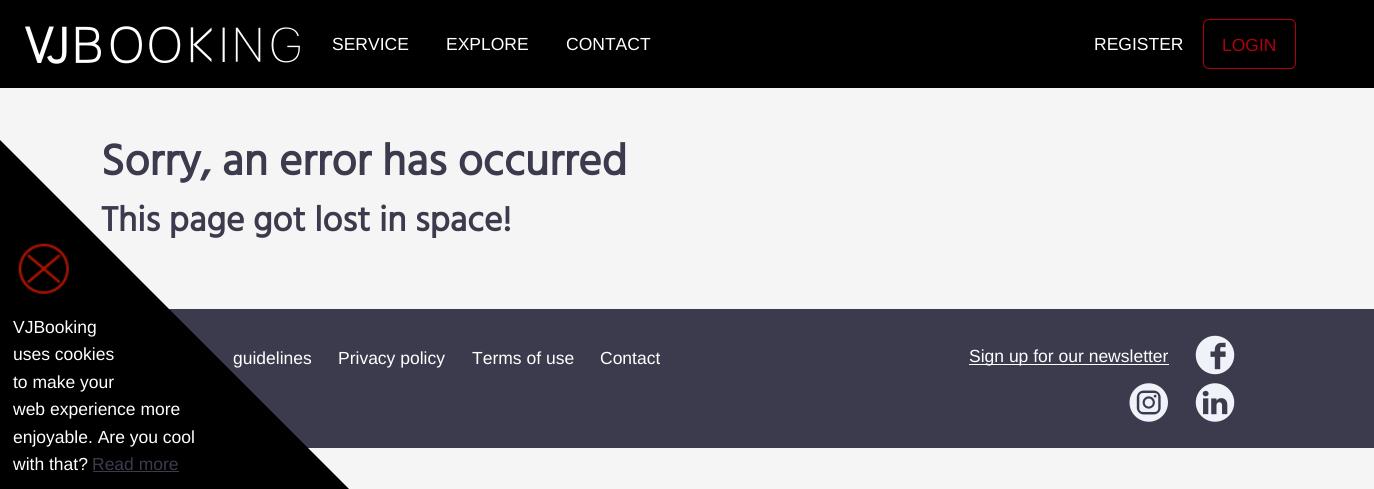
#include <cairo/cairo.h>
#include <math.h>
#include <stddef.h>

typedef struct { double x, y; const char *s; } line_t;
static cairo_t *cr;

static void rgb(unsigned color)
{
	cairo_set_source_rgb(cr, (color >> 16) / 255.0, (color >> 8 & 255) / 255.0, (color & 255) / 255.0);
}

static void rrect(double x, double y, double w, double h, double r)
{
	cairo_new_sub_path(cr);
	cairo_arc(cr, x + w - r, y + h - r, r, 0, M_PI / 2);
	cairo_arc(cr, x + r, y + h - r, r, M_PI / 2, M_PI);
	cairo_arc(cr, x + r, y + r, r, M_PI, 1.5 * M_PI);
	cairo_arc(cr, x + w - r, y + r, r, 1.5 * M_PI, 2 * M_PI);
	cairo_close_path(cr);
}

static void image(const char *path, double x, double y, double w, double h)
{
	cairo_surface_t *image = cairo_image_surface_create_from_png(path);
	cairo_save(cr);
	cairo_set_source_surface(cr, image, x, y);
	cairo_rectangle(cr, x, y, w, h);
	cairo_fill(cr);
	cairo_restore(cr);
	cairo_surface_destroy(image);
}

int main(void) {
	cairo_surface_t *surface = cairo_image_surface_create(CAIRO_FORMAT_RGB24, 1374, 489);
	cr = cairo_create(surface);
	cairo_font_options_t *options = cairo_font_options_create();
	cairo_font_options_set_hint_metrics(options, CAIRO_HINT_METRICS_OFF);
	cairo_font_options_set_hint_style(options, CAIRO_HINT_STYLE_NONE);
	cairo_set_font_options(cr, options);
	cairo_set_miter_limit(cr, 4);
	rgb(0xf5f5f5);
	cairo_paint(cr);
	rgb(0x000000);
	cairo_rectangle(cr, 0, 0, 1374, 88);
	cairo_fill(cr);
	image("img/1.png", 25, 26, 275, 38);
	rrect(1203.5, 19.5, 92, 49, 5.5);
	rgb(0xaf000f);
	cairo_set_line_width(cr, 1);
	cairo_stroke(cr);
	rgb(0x3b3b4d);
	cairo_rectangle(cr, 169, 309, 1205, 139);
	cairo_fill(cr);
	rgb(0xffffff);
	cairo_rectangle(cr, 969, 364, 200, 1);
	cairo_fill(cr);
	image("img/3.png", 1195, 335, 40, 40);
	image("img/4.png", 1129, 383, 39, 39);
	image("img/5.png", 1195, 383, 40, 39);
	cairo_select_font_face(cr, "Liberation Sans", CAIRO_FONT_SLANT_NORMAL, CAIRO_FONT_WEIGHT_NORMAL);
	cairo_set_font_size(cr, 17.5);
	{
		static const line_t items[] = {
			{332, 50, "SERVICE"},
			{446, 50, "EXPLORE"},
			{566, 50, "CONTACT"},
			{1094, 50, "REGISTER"},
		};
		for (size_t i = 0; i < sizeof items / sizeof *items; i++) {
			cairo_move_to(cr, items[i].x, items[i].y);
			cairo_show_text(cr, items[i].s);
		}
	}
	rgb(0xaf000f);
	cairo_move_to(cr, 1222, 51);
	cairo_show_text(cr, "LOGIN");
	cairo_select_font_face(cr, "Hind", CAIRO_FONT_SLANT_NORMAL, CAIRO_FONT_WEIGHT_BOLD);
	cairo_set_font_size(cr, 44.75);
	rgb(0x3b3b4d);
	cairo_move_to(cr, 101, 175);
	cairo_show_text(cr, "Sorry, an error has occurred");
	cairo_set_font_size(cr, 35.5);
	cairo_move_to(cr, 101, 231);
	cairo_show_text(cr, "This page got lost in space!");
	cairo_select_font_face(cr, "Liberation Sans", CAIRO_FONT_SLANT_NORMAL, CAIRO_FONT_WEIGHT_NORMAL);
	cairo_set_font_size(cr, 17.5);
	rgb(0xffffff);
	cairo_move_to(cr, 233, 364);
	cairo_show_text(cr, "guidelines");
	cairo_move_to(cr, 338, 364);
	cairo_show_text(cr, "Privacy policy");
	rgb(0x000000);
	cairo_new_path(cr);
	cairo_move_to(cr, 350, 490);
	cairo_line_to(cr, 0, 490);
	cairo_line_to(cr, 0, 140);
	cairo_close_path(cr);
	cairo_fill(cr);
	rgb(0x3b3b4d);
	cairo_move_to(cr, 92, 470);
	cairo_show_text(cr, "Read more");
	cairo_rectangle(cr, 93, 471, 86, 1);
	cairo_fill(cr);
	rgb(0xffffff);
	{
		static const line_t items[] = {
			{13, 470, "with that?"},
			{13, 443, "enjoyable. Are you cool"},
			{13, 415, "web experience more"},
			{13, 388, "to make your"},
			{13, 360, "uses cookies"},
			{13, 333, "VJBooking"},
		};
		for (size_t i = 0; i < sizeof items / sizeof *items; i++) {
			cairo_move_to(cr, items[i].x, items[i].y);
			cairo_show_text(cr, items[i].s);
		}
	}
	image("img/2.png", 18, 243, 51, 51);
	{
		static const line_t items[] = {
			{472, 364, "Terms of use"},
			{600, 364, "Contact"},
			{969, 362, "Sign up for our newsletter"},
		};
		for (size_t i = 0; i < sizeof items / sizeof *items; i++) {
			cairo_move_to(cr, items[i].x, items[i].y);
			cairo_show_text(cr, items[i].s);
		}
	}
	cairo_surface_write_to_png(surface, "page.png");
	cairo_font_options_destroy(options);
	cairo_destroy(cr);
	cairo_surface_destroy(surface);
	return 0;
}
